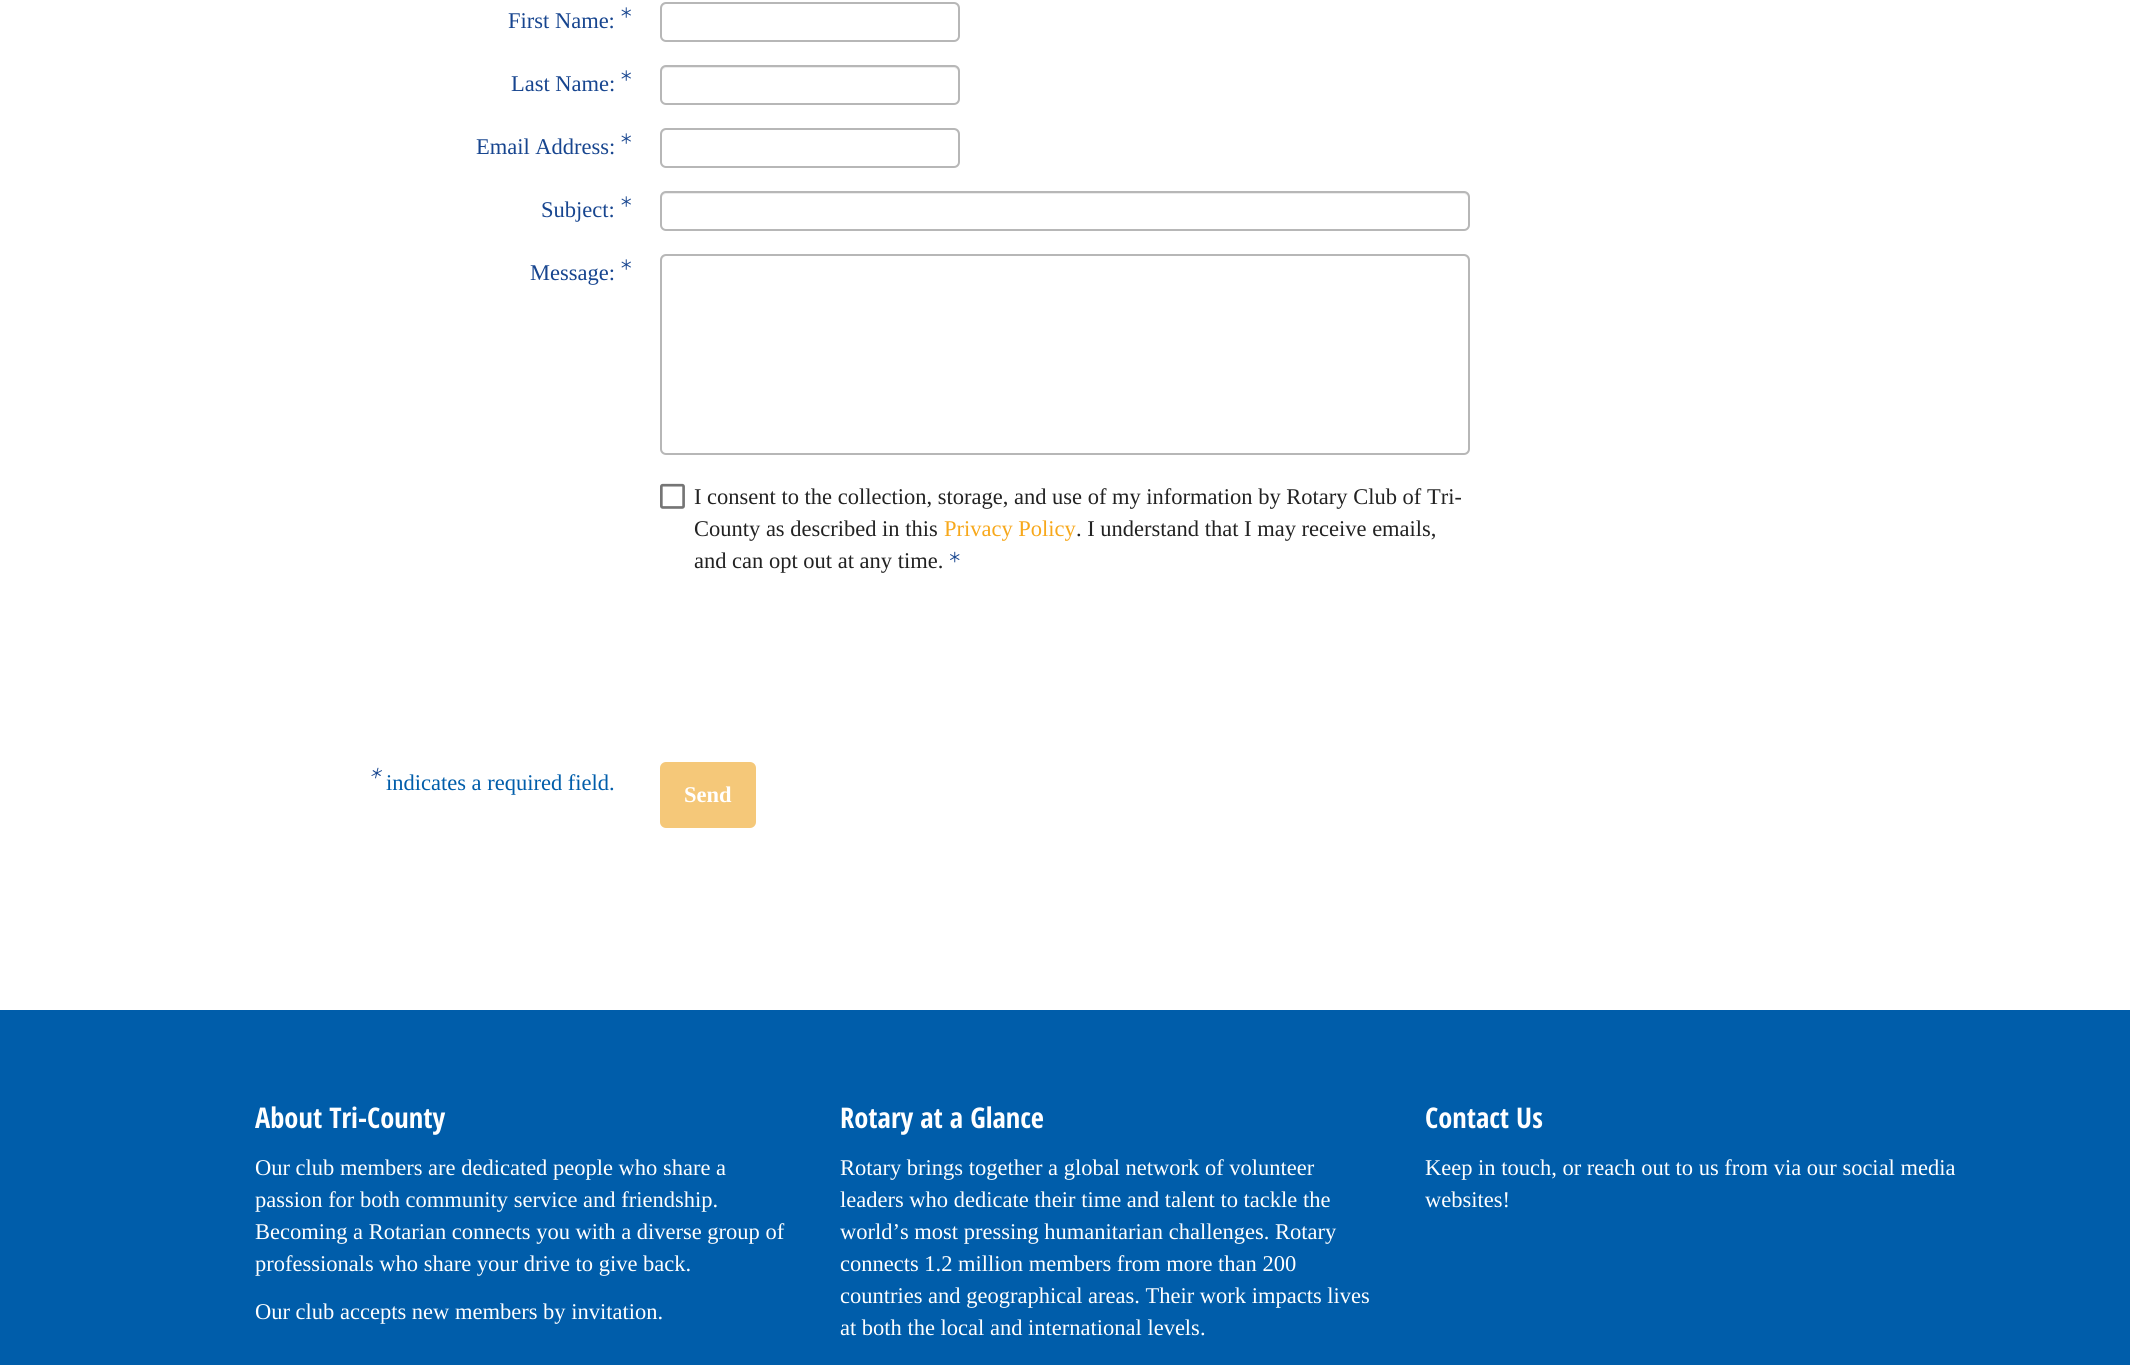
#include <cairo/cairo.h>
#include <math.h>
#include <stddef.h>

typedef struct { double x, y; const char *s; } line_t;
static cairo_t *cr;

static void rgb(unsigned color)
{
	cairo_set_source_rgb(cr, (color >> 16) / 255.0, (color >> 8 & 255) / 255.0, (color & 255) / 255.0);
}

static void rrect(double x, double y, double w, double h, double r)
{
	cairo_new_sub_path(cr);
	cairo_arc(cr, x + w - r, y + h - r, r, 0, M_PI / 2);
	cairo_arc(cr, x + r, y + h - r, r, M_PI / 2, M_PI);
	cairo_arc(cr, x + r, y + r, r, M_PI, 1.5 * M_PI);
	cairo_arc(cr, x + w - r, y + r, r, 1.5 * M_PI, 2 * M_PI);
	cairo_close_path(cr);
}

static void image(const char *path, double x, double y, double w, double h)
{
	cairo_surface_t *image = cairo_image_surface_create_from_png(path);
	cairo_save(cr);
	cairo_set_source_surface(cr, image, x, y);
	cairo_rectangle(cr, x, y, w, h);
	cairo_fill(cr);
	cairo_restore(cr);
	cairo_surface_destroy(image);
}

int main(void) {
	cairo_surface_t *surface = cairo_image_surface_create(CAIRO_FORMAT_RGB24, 2130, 1365);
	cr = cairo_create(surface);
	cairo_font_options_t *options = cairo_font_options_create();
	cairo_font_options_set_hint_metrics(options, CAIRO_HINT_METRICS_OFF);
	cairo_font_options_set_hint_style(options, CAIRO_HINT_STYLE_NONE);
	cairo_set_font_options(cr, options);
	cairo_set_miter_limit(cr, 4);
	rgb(0xffffff);
	cairo_paint(cr);
	image("img/1.png", 621, 7, 10, 11);
	rgb(0xececec);
	cairo_new_path(cr);
	cairo_move_to(cr, 666, 4);
	cairo_line_to(cr, 954, 4);
	cairo_curve_to(cr, 960, 4, 958, 16, 958, 19);
	cairo_line_to(cr, 958, 39);
	cairo_curve_to(cr, 959, 38, 959, 37, 959, 36);
	cairo_line_to(cr, 959, 8);
	cairo_curve_to(cr, 959, 5, 957, 3, 954, 3);
	cairo_line_to(cr, 667, 3);
	cairo_curve_to(cr, 664, 3, 662, 5, 662, 8);
	cairo_line_to(cr, 662, 9);
	cairo_curve_to(cr, 662, 7, 664, 4, 666, 4);
	cairo_close_path(cr);
	cairo_fill(cr);
	rrect(661, 3, 298, 38, 5);
	rgb(0xb7b7b7);
	cairo_stroke(cr);
	image("img/1.png", 621, 70, 10, 11);
	rgb(0xececec);
	cairo_new_path(cr);
	cairo_move_to(cr, 666, 68);
	cairo_line_to(cr, 954, 68);
	cairo_curve_to(cr, 956, 68, 958, 70, 958, 72);
	cairo_line_to(cr, 958, 100);
	cairo_line_to(cr, 957, 103);
	cairo_curve_to(cr, 958, 102, 959, 100, 959, 99);
	cairo_line_to(cr, 959, 71);
	cairo_curve_to(cr, 959, 68, 957, 66, 954, 66);
	cairo_line_to(cr, 667, 66);
	cairo_curve_to(cr, 664, 66, 662, 68, 662, 71);
	cairo_line_to(cr, 662, 72);
	cairo_curve_to(cr, 662, 70, 664, 68, 666, 68);
	cairo_close_path(cr);
	cairo_fill(cr);
	rrect(661, 66, 298, 38, 5);
	rgb(0xb7b7b7);
	cairo_stroke(cr);
	image("img/1.png", 621, 133, 10, 11);
	rgb(0xececec);
	cairo_new_path(cr);
	cairo_move_to(cr, 666, 130);
	cairo_line_to(cr, 954, 130);
	cairo_curve_to(cr, 960, 130, 958, 142, 958, 145);
	cairo_line_to(cr, 958, 165);
	cairo_curve_to(cr, 959, 164, 959, 163, 959, 162);
	cairo_line_to(cr, 959, 134);
	cairo_curve_to(cr, 959, 131, 957, 129, 954, 129);
	cairo_line_to(cr, 667, 129);
	cairo_curve_to(cr, 664, 129, 662, 131, 662, 134);
	cairo_line_to(cr, 662, 135);
	cairo_curve_to(cr, 662, 133, 664, 130, 666, 130);
	cairo_close_path(cr);
	cairo_fill(cr);
	rrect(661, 129, 298, 38, 5);
	rgb(0xb7b7b7);
	cairo_stroke(cr);
	image("img/1.png", 621, 196, 10, 11);
	rgb(0xececec);
	cairo_new_path(cr);
	cairo_move_to(cr, 666, 194);
	cairo_line_to(cr, 1464, 194);
	cairo_curve_to(cr, 1466, 194, 1468, 196, 1468, 198);
	cairo_line_to(cr, 1468, 226);
	cairo_line_to(cr, 1467, 229);
	cairo_curve_to(cr, 1468, 228, 1469, 226, 1469, 225);
	cairo_line_to(cr, 1469, 197);
	cairo_curve_to(cr, 1469, 194, 1467, 192, 1464, 192);
	cairo_line_to(cr, 667, 192);
	cairo_curve_to(cr, 664, 192, 662, 194, 662, 197);
	cairo_line_to(cr, 662, 198);
	cairo_curve_to(cr, 662, 196, 664, 194, 666, 194);
	cairo_close_path(cr);
	cairo_fill(cr);
	rrect(661, 192, 808, 38, 5);
	rgb(0xb7b7b7);
	cairo_stroke(cr);
	image("img/1.png", 621, 259, 10, 11);
	rgb(0xececec);
	cairo_new_path(cr);
	cairo_move_to(cr, 666, 256);
	cairo_line_to(cr, 1464, 256);
	cairo_curve_to(cr, 1466, 256, 1468, 259, 1468, 261);
	cairo_line_to(cr, 1468, 451);
	cairo_curve_to(cr, 1469, 450, 1469, 449, 1469, 448);
	cairo_line_to(cr, 1469, 260);
	cairo_curve_to(cr, 1469, 257, 1467, 255, 1464, 255);
	cairo_line_to(cr, 667, 255);
	cairo_curve_to(cr, 664, 255, 662, 257, 662, 260);
	cairo_line_to(cr, 662, 261);
	cairo_curve_to(cr, 662, 259, 664, 256, 666, 256);
	cairo_close_path(cr);
	cairo_fill(cr);
	rrect(661, 255, 808, 199, 5);
	rgb(0xb7b7b7);
	cairo_stroke(cr);
	image("img/2.png", 660, 483, 25, 26);
	image("img/3.png", 950, 551, 10, 12);
	image("img/4.png", 371, 767, 11, 12);
	rgb(0xf5c879);
	rrect(661, 763, 94, 64, 5);
	cairo_fill_preserve(cr);
	cairo_stroke(cr);
	rgb(0x005daa);
	cairo_rectangle(cr, 0, 1010, 2130, 355);
	cairo_fill(cr);
	cairo_select_font_face(cr, "Liberation Serif", CAIRO_FONT_SLANT_NORMAL, CAIRO_FONT_WEIGHT_NORMAL);
	cairo_set_font_size(cr, 22.5);
	rgb(0x17458f);
	{
		static const line_t items[] = {
			{508, 28, "First Name:"},
			{511, 91, "Last Name:"},
			{476, 154, "Email Address:"},
			{541, 217, "Subject:"},
			{530, 280, "Message:"},
		};
		for (size_t i = 0; i < sizeof items / sizeof *items; i++) {
			cairo_move_to(cr, items[i].x, items[i].y);
			cairo_show_text(cr, items[i].s);
		}
	}
	rgb(0x222222);
	cairo_move_to(cr, 694, 504);
	cairo_show_text(cr, "I consent to the collection, storage, and use of my information by Rotary Club of Tri-");
	cairo_move_to(cr, 694, 536);
	cairo_show_text(cr, "County as described in this");
	rgb(0xf7a81b);
	cairo_move_to(cr, 944, 536);
	cairo_show_text(cr, "Privacy Policy");
	rgb(0x222222);
	cairo_move_to(cr, 1076, 536);
	cairo_show_text(cr, ". I understand that I may receive emails,");
	cairo_move_to(cr, 694, 568);
	cairo_show_text(cr, "and can opt out at any time.");
	rgb(0x005daa);
	cairo_move_to(cr, 386, 790);
	cairo_show_text(cr, "indicates a required field.");
	cairo_select_font_face(cr, "Liberation Serif", CAIRO_FONT_SLANT_NORMAL, CAIRO_FONT_WEIGHT_BOLD);
	rgb(0xffffff);
	cairo_move_to(cr, 684, 802);
	cairo_show_text(cr, "Send");
	cairo_select_font_face(cr, "Open Sans Condensed", CAIRO_FONT_SLANT_NORMAL, CAIRO_FONT_WEIGHT_BOLD);
	cairo_set_font_size(cr, 28.5);
	cairo_move_to(cr, 255, 1128);
	cairo_show_text(cr, "About Tri-County");
	cairo_select_font_face(cr, "Liberation Serif", CAIRO_FONT_SLANT_NORMAL, CAIRO_FONT_WEIGHT_NORMAL);
	cairo_set_font_size(cr, 22.5);
	{
		static const line_t items[] = {
			{255, 1175, "Our club members are dedicated people who share a"},
			{255, 1207, "passion for both community service and friendship."},
			{255, 1239, "Becoming a Rotarian connects you with a diverse group of"},
			{255, 1271, "professionals who share your drive to give back."},
			{255, 1319, "Our club accepts new members by invitation."},
		};
		for (size_t i = 0; i < sizeof items / sizeof *items; i++) {
			cairo_move_to(cr, items[i].x, items[i].y);
			cairo_show_text(cr, items[i].s);
		}
	}
	cairo_select_font_face(cr, "Open Sans Condensed", CAIRO_FONT_SLANT_NORMAL, CAIRO_FONT_WEIGHT_BOLD);
	cairo_set_font_size(cr, 28.5);
	cairo_move_to(cr, 840, 1128);
	cairo_show_text(cr, "Rotary at a Glance");
	cairo_select_font_face(cr, "Liberation Serif", CAIRO_FONT_SLANT_NORMAL, CAIRO_FONT_WEIGHT_NORMAL);
	cairo_set_font_size(cr, 22.5);
	{
		static const line_t items[] = {
			{840, 1175, "Rotary brings together a global network of volunteer"},
			{840, 1207, "leaders who dedicate their time and talent to tackle the"},
			{840, 1239, "world’s most pressing humanitarian challenges. Rotary"},
			{840, 1271, "connects 1.2 million members from more than 200"},
			{840, 1303, "countries and geographical areas. Their work impacts lives"},
			{840, 1335, "at both the local and international levels."},
		};
		for (size_t i = 0; i < sizeof items / sizeof *items; i++) {
			cairo_move_to(cr, items[i].x, items[i].y);
			cairo_show_text(cr, items[i].s);
		}
	}
	cairo_select_font_face(cr, "Open Sans Condensed", CAIRO_FONT_SLANT_NORMAL, CAIRO_FONT_WEIGHT_BOLD);
	cairo_set_font_size(cr, 28.5);
	cairo_move_to(cr, 1425, 1128);
	cairo_show_text(cr, "Contact Us");
	cairo_select_font_face(cr, "Liberation Serif", CAIRO_FONT_SLANT_NORMAL, CAIRO_FONT_WEIGHT_NORMAL);
	cairo_set_font_size(cr, 22.5);
	cairo_move_to(cr, 1425, 1175);
	cairo_show_text(cr, "Keep in touch, or reach out to us from via our social media");
	cairo_move_to(cr, 1425, 1207);
	cairo_show_text(cr, "websites!");
	cairo_surface_write_to_png(surface, "page.png");
	cairo_font_options_destroy(options);
	cairo_destroy(cr);
	cairo_surface_destroy(surface);
	return 0;
}
